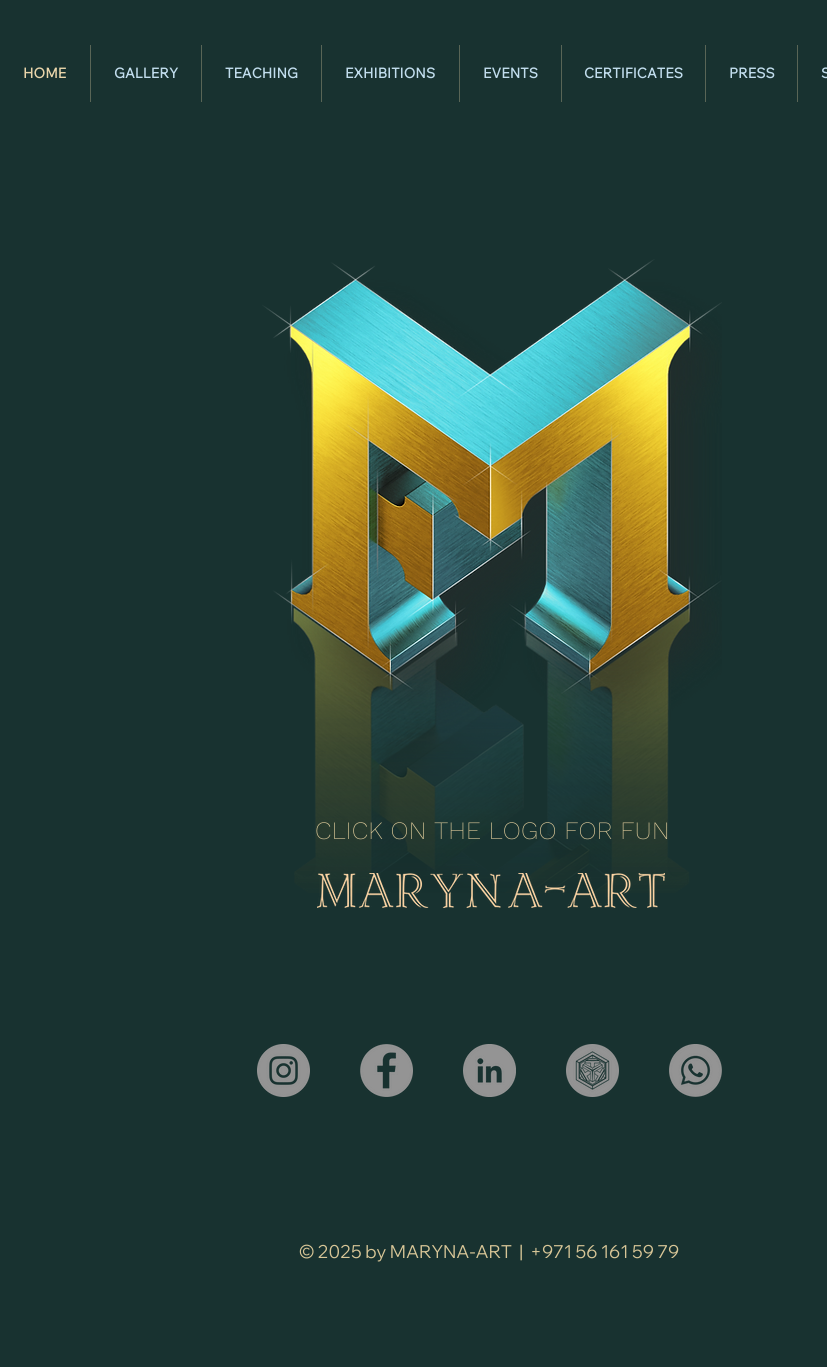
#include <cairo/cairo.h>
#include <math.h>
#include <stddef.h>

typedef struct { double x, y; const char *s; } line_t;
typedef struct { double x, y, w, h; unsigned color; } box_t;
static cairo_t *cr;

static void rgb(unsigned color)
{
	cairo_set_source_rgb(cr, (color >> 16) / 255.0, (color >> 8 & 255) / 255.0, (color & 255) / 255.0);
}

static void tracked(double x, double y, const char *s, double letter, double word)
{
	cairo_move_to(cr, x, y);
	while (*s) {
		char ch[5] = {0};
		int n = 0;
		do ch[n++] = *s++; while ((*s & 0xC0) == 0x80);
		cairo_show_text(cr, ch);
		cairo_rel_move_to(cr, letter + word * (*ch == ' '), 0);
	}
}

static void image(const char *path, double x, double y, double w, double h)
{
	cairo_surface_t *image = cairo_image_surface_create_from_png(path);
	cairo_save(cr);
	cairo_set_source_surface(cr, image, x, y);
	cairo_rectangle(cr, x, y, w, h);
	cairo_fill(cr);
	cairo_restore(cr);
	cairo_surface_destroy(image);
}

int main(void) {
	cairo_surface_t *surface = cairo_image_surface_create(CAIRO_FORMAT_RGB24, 827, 1367);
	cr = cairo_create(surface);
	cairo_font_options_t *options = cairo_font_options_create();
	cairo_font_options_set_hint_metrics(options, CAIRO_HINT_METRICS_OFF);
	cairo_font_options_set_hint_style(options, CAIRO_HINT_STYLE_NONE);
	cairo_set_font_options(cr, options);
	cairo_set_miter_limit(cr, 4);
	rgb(0x183230);
	cairo_paint(cr);
	{
		static const box_t items[] = {
			{90, 45, 1, 57, 0x596556},
			{201, 45, 1, 57, 0x596556},
			{321, 45, 1, 57, 0x596556},
			{459, 45, 1, 57, 0x596556},
			{561, 45, 1, 57, 0x596556},
			{705, 45, 1, 57, 0x596556},
			{797, 45, 1, 57, 0x596556},
		};
		for (size_t i = 0; i < sizeof items / sizeof *items; i++) {
			rgb(items[i].color);
			cairo_rectangle(cr, items[i].x, items[i].y, items[i].w, items[i].h);
			cairo_fill(cr);
		}
	}
	image("img/1.png", 262, 259, 460, 634);
	image("img/2.png", 317, 873, 348, 35);
	image("img/3.png", 257, 1044, 53, 53);
	image("img/4.png", 360, 1044, 53, 53);
	image("img/5.png", 463, 1044, 53, 53);
	image("img/6.png", 566, 1044, 53, 53);
	image("img/7.png", 669, 1044, 53, 53);
	cairo_select_font_face(cr, "Wix Madefor Text", CAIRO_FONT_SLANT_NORMAL, CAIRO_FONT_WEIGHT_BOLD);
	cairo_set_font_size(cr, 14);
	rgb(0xe9d5aa);
	cairo_move_to(cr, 23, 78);
	cairo_show_text(cr, "HOME");
	rgb(0xc1dded);
	{
		static const line_t items[] = {
			{114, 78, "GALLERY"},
			{225, 78, "TEACHING"},
			{345, 78, "EXHIBITIONS"},
			{483, 78, "EVENTS"},
			{584, 78, "CERTIFICATES"},
			{729, 78, "PRESS"},
			{821, 78, "S"},
		};
		for (size_t i = 0; i < sizeof items / sizeof *items; i++) {
			cairo_move_to(cr, items[i].x, items[i].y);
			cairo_show_text(cr, items[i].s);
		}
	}
	cairo_select_font_face(cr, "Work Sans ExtraLight", CAIRO_FONT_SLANT_NORMAL, CAIRO_FONT_WEIGHT_NORMAL);
	cairo_set_font_size(cr, 25);
	rgb(0xd8c697);
	tracked(315, 839, "CLICK ON THE LOGO FOR FUN", 0.25, 0);
	cairo_select_font_face(cr, "Wix Madefor Display", CAIRO_FONT_SLANT_NORMAL, CAIRO_FONT_WEIGHT_NORMAL);
	cairo_set_font_size(cr, 18);
	cairo_move_to(cr, 299, 1258);
	cairo_show_text(cr, "© 2025 by MARYNA-ART  |  +971 56 161 59 79");
	cairo_surface_write_to_png(surface, "page.png");
	cairo_font_options_destroy(options);
	cairo_destroy(cr);
	cairo_surface_destroy(surface);
	return 0;
}
